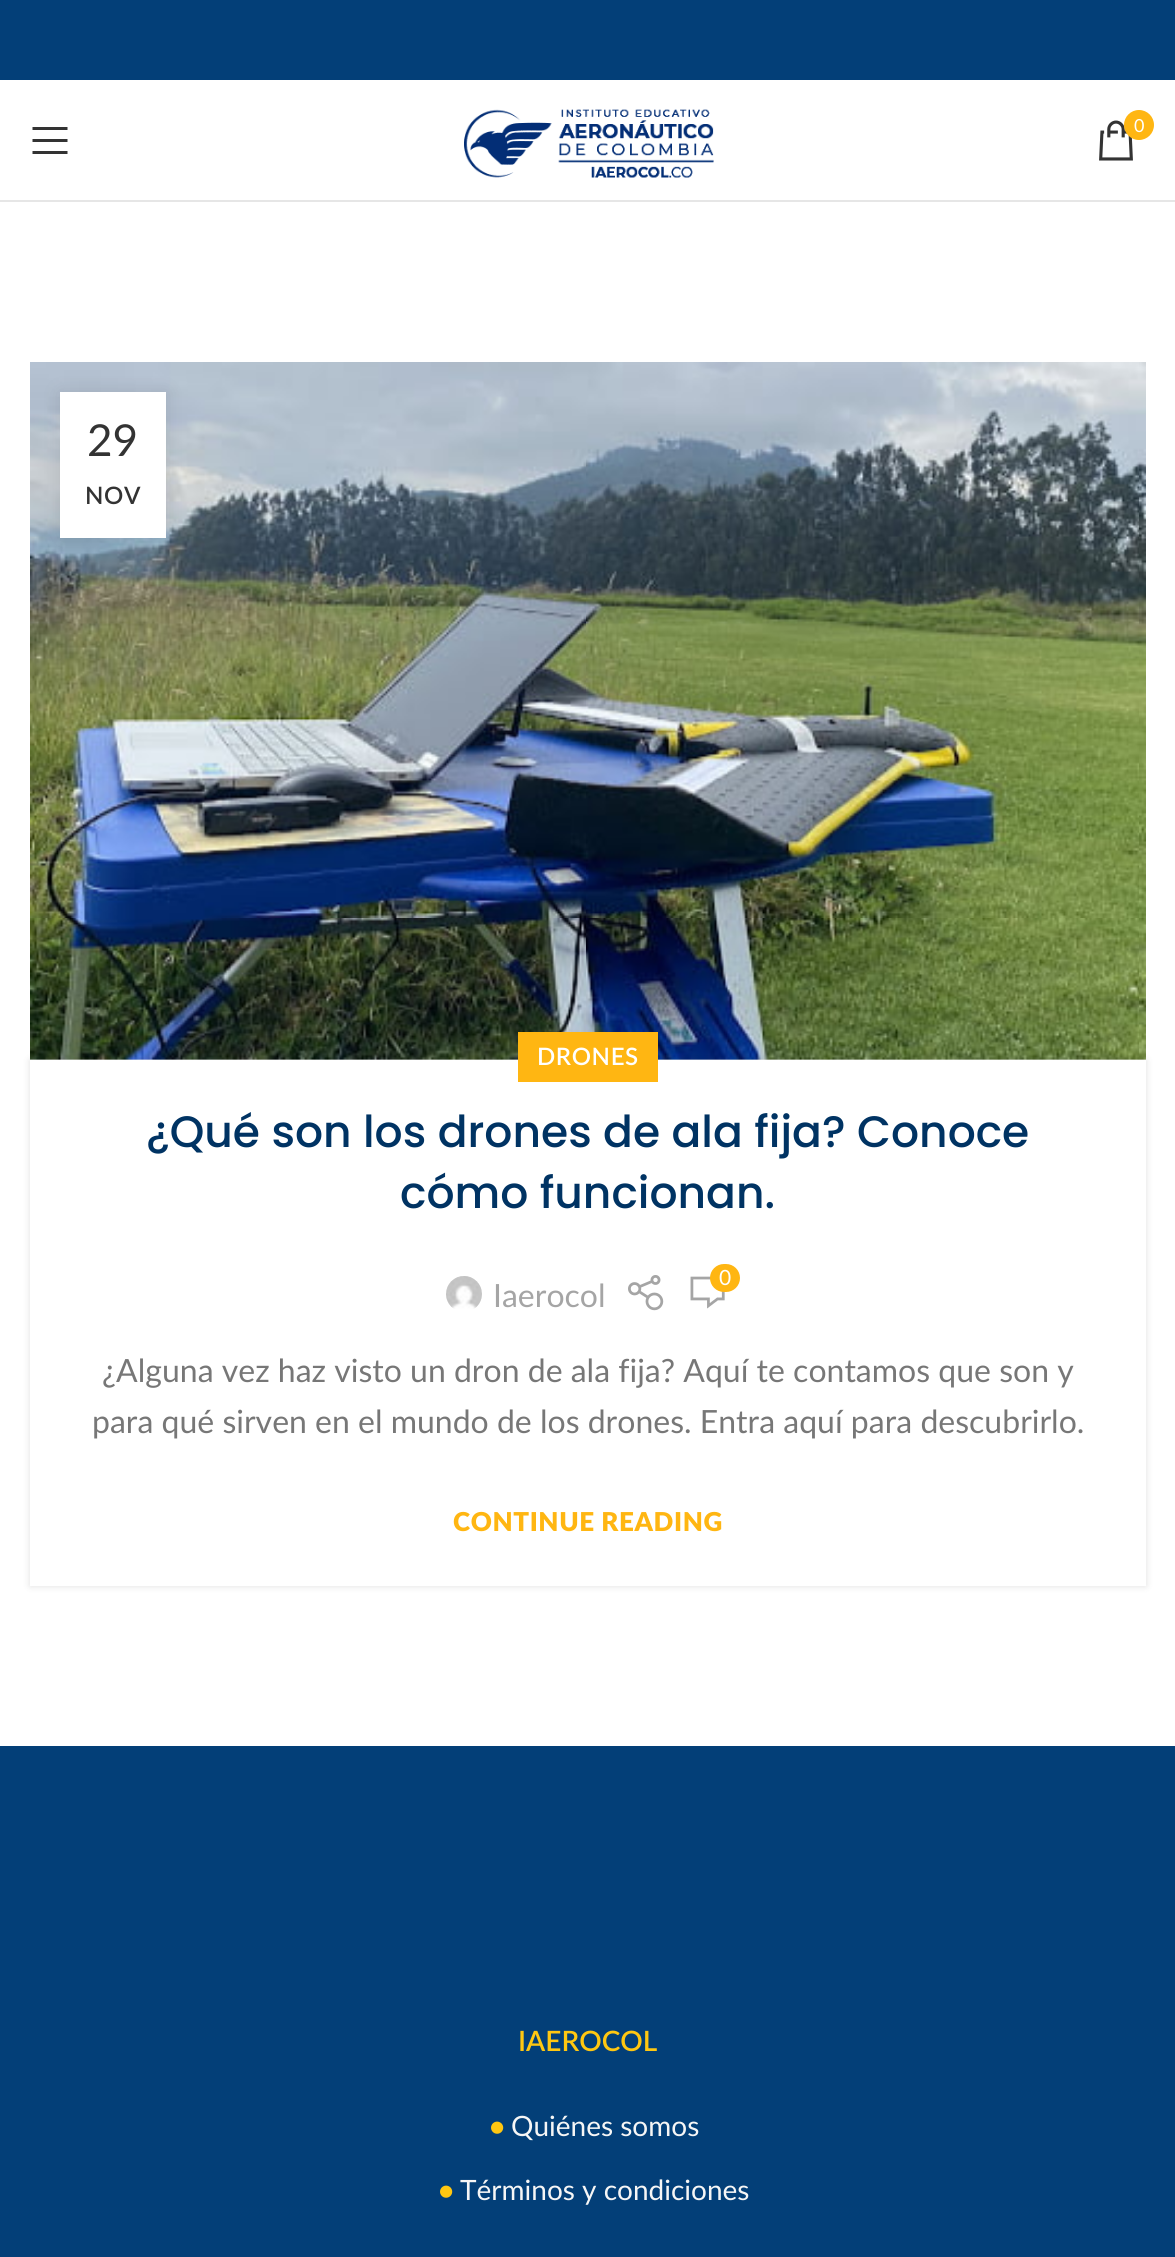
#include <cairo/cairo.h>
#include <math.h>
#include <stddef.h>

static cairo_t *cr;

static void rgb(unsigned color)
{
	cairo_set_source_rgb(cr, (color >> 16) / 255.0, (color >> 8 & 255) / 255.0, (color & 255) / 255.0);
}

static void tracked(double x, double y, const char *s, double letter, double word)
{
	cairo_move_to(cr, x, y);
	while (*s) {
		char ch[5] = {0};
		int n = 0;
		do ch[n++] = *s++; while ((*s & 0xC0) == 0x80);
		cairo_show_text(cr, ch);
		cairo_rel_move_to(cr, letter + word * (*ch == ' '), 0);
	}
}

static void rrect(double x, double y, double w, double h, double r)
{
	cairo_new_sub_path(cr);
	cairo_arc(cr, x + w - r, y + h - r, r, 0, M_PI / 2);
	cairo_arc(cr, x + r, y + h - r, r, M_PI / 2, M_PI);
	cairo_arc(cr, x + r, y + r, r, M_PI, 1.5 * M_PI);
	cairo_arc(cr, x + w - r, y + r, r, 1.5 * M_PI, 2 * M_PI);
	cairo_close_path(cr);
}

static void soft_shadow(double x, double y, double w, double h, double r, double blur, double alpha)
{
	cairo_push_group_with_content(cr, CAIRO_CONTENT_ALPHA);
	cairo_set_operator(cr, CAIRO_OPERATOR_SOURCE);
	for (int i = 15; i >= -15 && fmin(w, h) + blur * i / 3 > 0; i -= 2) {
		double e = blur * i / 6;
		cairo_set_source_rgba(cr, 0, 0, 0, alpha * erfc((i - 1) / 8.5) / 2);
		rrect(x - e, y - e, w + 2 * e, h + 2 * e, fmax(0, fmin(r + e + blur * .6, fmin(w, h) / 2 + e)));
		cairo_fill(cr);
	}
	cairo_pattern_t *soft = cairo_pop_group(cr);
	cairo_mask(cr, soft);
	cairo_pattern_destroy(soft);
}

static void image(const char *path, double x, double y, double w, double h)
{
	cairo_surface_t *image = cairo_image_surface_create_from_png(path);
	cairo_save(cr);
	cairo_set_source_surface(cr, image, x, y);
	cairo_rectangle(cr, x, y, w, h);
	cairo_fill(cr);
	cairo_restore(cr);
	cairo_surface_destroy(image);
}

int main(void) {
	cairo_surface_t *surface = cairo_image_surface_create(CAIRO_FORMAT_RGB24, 1175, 2257);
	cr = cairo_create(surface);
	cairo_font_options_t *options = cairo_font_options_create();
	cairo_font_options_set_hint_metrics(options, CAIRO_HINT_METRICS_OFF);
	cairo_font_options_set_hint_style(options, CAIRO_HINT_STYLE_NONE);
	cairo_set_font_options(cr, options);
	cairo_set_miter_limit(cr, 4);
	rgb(0xffffff);
	cairo_paint(cr);
	rgb(0x033f78);
	cairo_rectangle(cr, 0, 0, 1175, 80);
	cairo_fill(cr);
	rgb(0xe6e6e6);
	cairo_rectangle(cr, 0, 200, 1175, 2);
	cairo_fill(cr);
	image("img/1.png", 464, 109, 250, 69);
	image("img/2.png", 1099, 120, 34, 41);
	rgb(0xffb612);
	cairo_arc(cr, 1139, 125, 15, 0, 2 * M_PI);
	cairo_fill(cr);
	rgb(0x333333);
	cairo_new_path(cr);
	cairo_move_to(cr, 32.5, 130);
	cairo_line_to(cr, 67.5, 130);
	cairo_line_to(cr, 67.5, 127);
	cairo_line_to(cr, 32.5, 127);
	cairo_close_path(cr);
	cairo_move_to(cr, 32.5, 142);
	cairo_line_to(cr, 67.5, 142);
	cairo_line_to(cr, 67.5, 139);
	cairo_line_to(cr, 32.5, 139);
	cairo_close_path(cr);
	cairo_move_to(cr, 32.5, 154);
	cairo_line_to(cr, 67.5, 154);
	cairo_line_to(cr, 67.5, 151);
	cairo_line_to(cr, 32.5, 151);
	cairo_close_path(cr);
	cairo_fill(cr);
	image("img/3.png", 30, 362, 1116, 698);
	rgb(0x000000);
	soft_shadow(60, 392, 106, 146, 0, 9, 0.1);
	rgb(0xffffff);
	cairo_rectangle(cr, 60, 392, 106, 146);
	cairo_fill(cr);
	cairo_save(cr);
	cairo_set_fill_rule(cr, CAIRO_FILL_RULE_EVEN_ODD);
	cairo_new_path(cr);
	cairo_move_to(cr, 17, 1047);
	cairo_line_to(cr, 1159, 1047);
	cairo_line_to(cr, 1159, 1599);
	cairo_line_to(cr, 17, 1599);
	cairo_close_path(cr);
	cairo_move_to(cr, 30, 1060);
	cairo_line_to(cr, 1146, 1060);
	cairo_line_to(cr, 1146, 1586);
	cairo_line_to(cr, 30, 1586);
	cairo_close_path(cr);
	cairo_clip(cr);
	rgb(0x000000);
	soft_shadow(30, 1060, 1116, 526, 0, 4, 0.12);
	cairo_restore(cr);
	rgb(0xffb612);
	cairo_rectangle(cr, 518, 1032, 140, 50);
	cairo_fill(cr);
	image("img/4.png", 446, 1276, 36, 33);
	image("img/5.png", 628, 1275, 36, 36);
	image("img/6.png", 690, 1276, 35, 33);
	rrect(710, 1264, 30, 28, 14);
	cairo_fill(cr);
	rgb(0x033f78);
	cairo_rectangle(cr, 0, 1746, 1175, 511);
	cairo_fill(cr);
	cairo_select_font_face(cr, "Lato", CAIRO_FONT_SLANT_NORMAL, CAIRO_FONT_WEIGHT_NORMAL);
	cairo_set_font_size(cr, 18);
	rgb(0xffffff);
	cairo_move_to(cr, 1134, 132);
	cairo_show_text(cr, "0");
	cairo_set_font_size(cr, 44);
	rgb(0x333333);
	cairo_move_to(cr, 87, 456);
	cairo_show_text(cr, "29");
	cairo_select_font_face(cr, "Lato SemiBold", CAIRO_FONT_SLANT_NORMAL, CAIRO_FONT_WEIGHT_NORMAL);
	cairo_set_font_size(cr, 24);
	tracked(85, 504, "NOV", 0.6, 0);
	rgb(0xffffff);
	tracked(537, 1065, "DRONES", 0.6, 0);
	cairo_select_font_face(cr, "Poppins Medium", CAIRO_FONT_SLANT_NORMAL, CAIRO_FONT_WEIGHT_NORMAL);
	cairo_set_font_size(cr, 44);
	rgb(0x003363);
	cairo_move_to(cr, 146, 1147);
	cairo_show_text(cr, "¿Qué son los drones de ala fija? Conoce");
	cairo_move_to(cr, 400, 1208);
	cairo_show_text(cr, "cómo funcionan.");
	cairo_select_font_face(cr, "Lato", CAIRO_FONT_SLANT_NORMAL, CAIRO_FONT_WEIGHT_NORMAL);
	cairo_set_font_size(cr, 32);
	rgb(0xa5a5a5);
	cairo_move_to(cr, 493, 1307);
	cairo_show_text(cr, "Iaerocol");
	cairo_set_font_size(cr, 21);
	rgb(0xffffff);
	cairo_move_to(cr, 719, 1285);
	cairo_show_text(cr, "0");
	cairo_set_font_size(cr, 32);
	rgb(0x777777);
	cairo_move_to(cr, 102, 1382);
	cairo_show_text(cr, "¿Alguna vez haz visto un dron de ala fija? Aquí te contamos que son y");
	cairo_move_to(cr, 92, 1433);
	cairo_show_text(cr, "para qué sirven en el mundo de los drones. Entra aquí para descubrirlo.");
	cairo_select_font_face(cr, "Lato ExtraBold", CAIRO_FONT_SLANT_NORMAL, CAIRO_FONT_WEIGHT_NORMAL);
	cairo_set_font_size(cr, 26);
	rgb(0xffb612);
	tracked(453, 1531, "CONTINUE READING", 0.6, 0);
	cairo_select_font_face(cr, "Lato SemiBold", CAIRO_FONT_SLANT_NORMAL, CAIRO_FONT_WEIGHT_NORMAL);
	cairo_set_font_size(cr, 28);
	rgb(0xffc711);
	cairo_move_to(cr, 518, 2051);
	cairo_show_text(cr, "IAEROCOL");
	cairo_select_font_face(cr, "Lato", CAIRO_FONT_SLANT_NORMAL, CAIRO_FONT_WEIGHT_BOLD);
	cairo_move_to(cr, 489, 2136);
	cairo_show_text(cr, "•");
	cairo_select_font_face(cr, "Lato", CAIRO_FONT_SLANT_NORMAL, CAIRO_FONT_WEIGHT_NORMAL);
	rgb(0xf6f6f6);
	cairo_move_to(cr, 511, 2136);
	cairo_show_text(cr, "Quiénes somos");
	cairo_select_font_face(cr, "Lato", CAIRO_FONT_SLANT_NORMAL, CAIRO_FONT_WEIGHT_BOLD);
	rgb(0xffc711);
	cairo_move_to(cr, 438, 2200);
	cairo_show_text(cr, "•");
	cairo_select_font_face(cr, "Lato", CAIRO_FONT_SLANT_NORMAL, CAIRO_FONT_WEIGHT_NORMAL);
	rgb(0xf6f6f6);
	cairo_move_to(cr, 460, 2200);
	cairo_show_text(cr, "Términos y condiciones");
	cairo_surface_write_to_png(surface, "page.png");
	cairo_font_options_destroy(options);
	cairo_destroy(cr);
	cairo_surface_destroy(surface);
	return 0;
}
